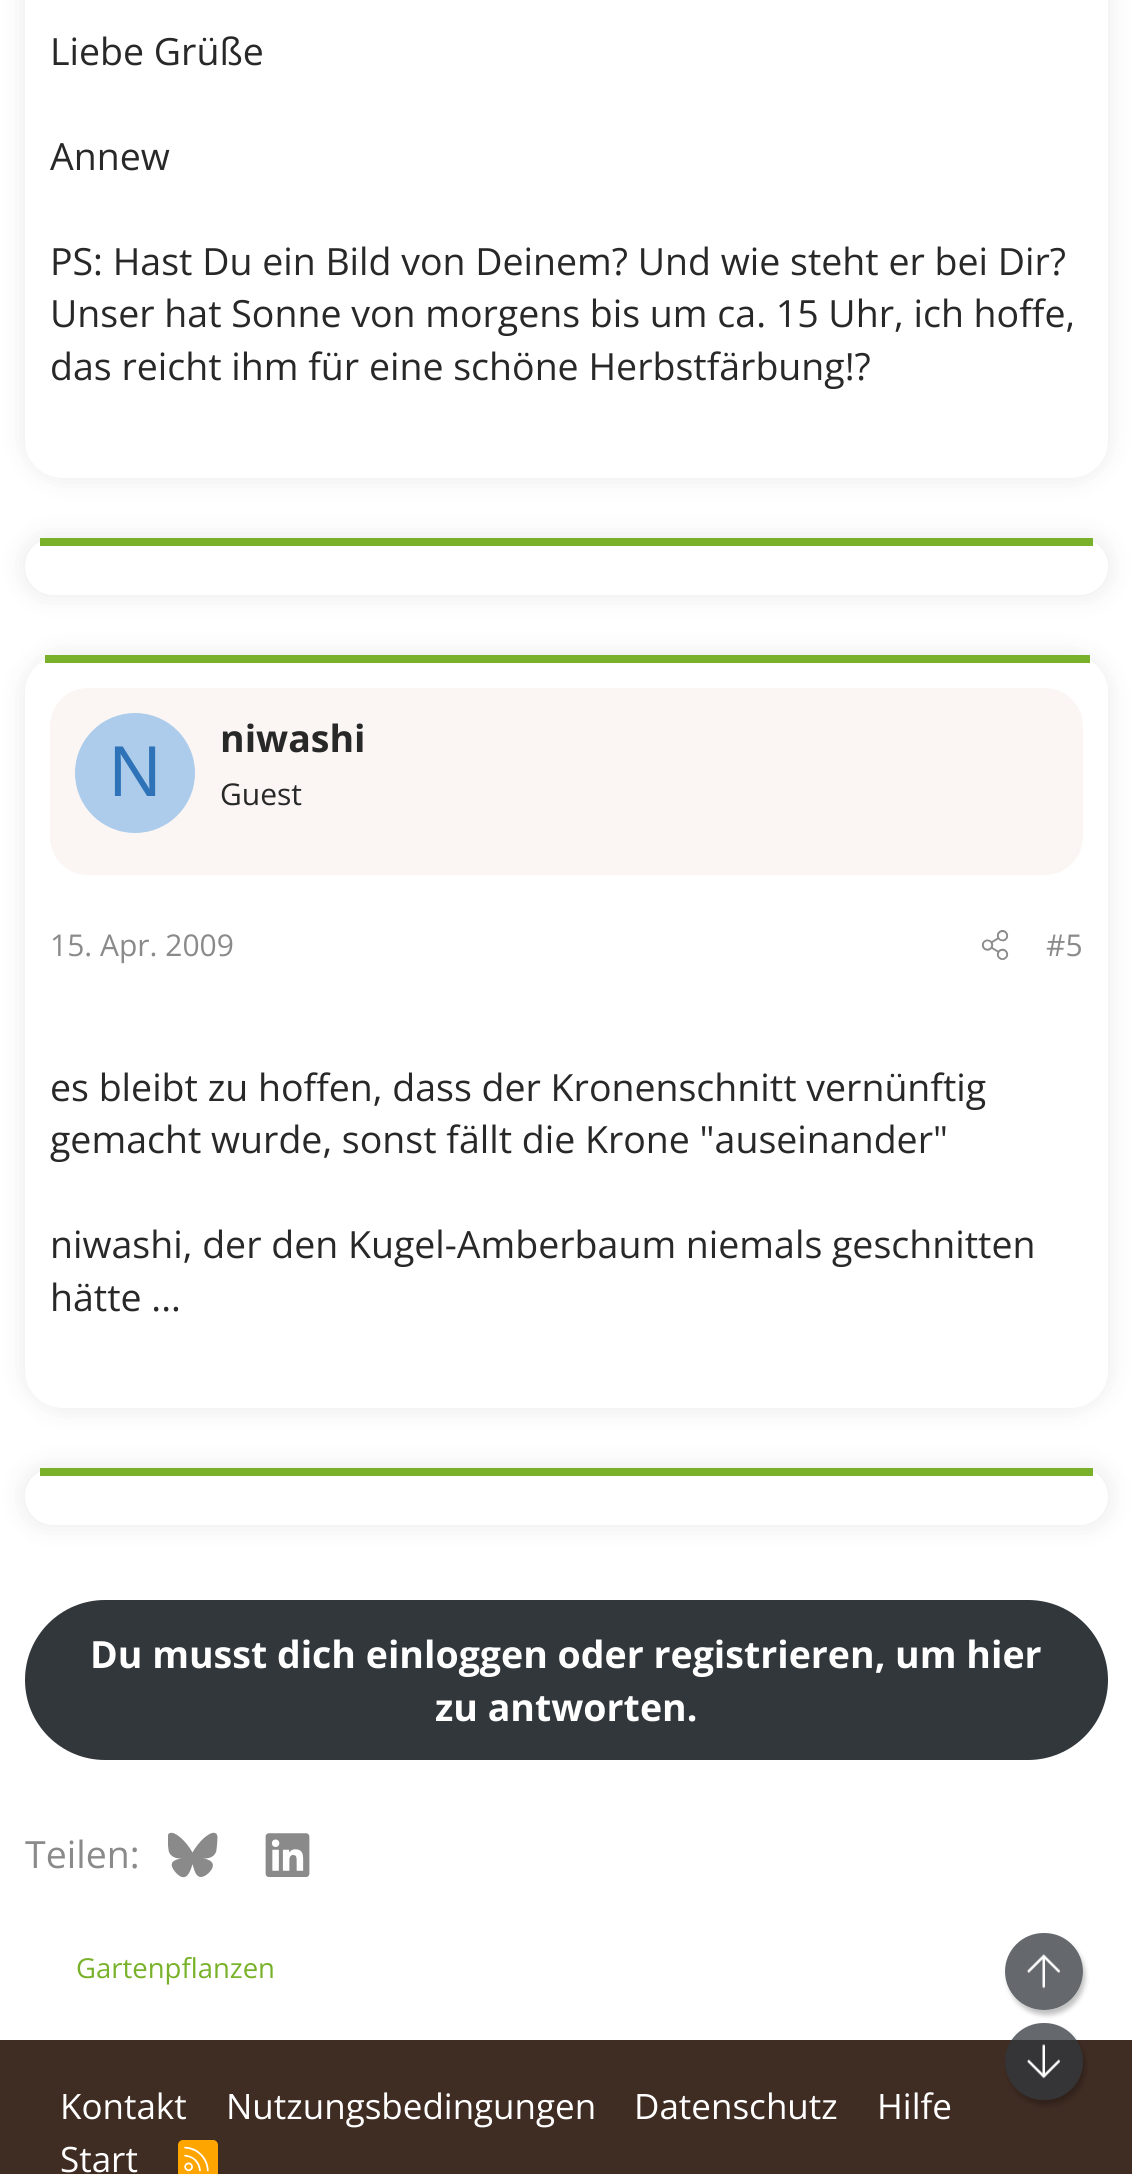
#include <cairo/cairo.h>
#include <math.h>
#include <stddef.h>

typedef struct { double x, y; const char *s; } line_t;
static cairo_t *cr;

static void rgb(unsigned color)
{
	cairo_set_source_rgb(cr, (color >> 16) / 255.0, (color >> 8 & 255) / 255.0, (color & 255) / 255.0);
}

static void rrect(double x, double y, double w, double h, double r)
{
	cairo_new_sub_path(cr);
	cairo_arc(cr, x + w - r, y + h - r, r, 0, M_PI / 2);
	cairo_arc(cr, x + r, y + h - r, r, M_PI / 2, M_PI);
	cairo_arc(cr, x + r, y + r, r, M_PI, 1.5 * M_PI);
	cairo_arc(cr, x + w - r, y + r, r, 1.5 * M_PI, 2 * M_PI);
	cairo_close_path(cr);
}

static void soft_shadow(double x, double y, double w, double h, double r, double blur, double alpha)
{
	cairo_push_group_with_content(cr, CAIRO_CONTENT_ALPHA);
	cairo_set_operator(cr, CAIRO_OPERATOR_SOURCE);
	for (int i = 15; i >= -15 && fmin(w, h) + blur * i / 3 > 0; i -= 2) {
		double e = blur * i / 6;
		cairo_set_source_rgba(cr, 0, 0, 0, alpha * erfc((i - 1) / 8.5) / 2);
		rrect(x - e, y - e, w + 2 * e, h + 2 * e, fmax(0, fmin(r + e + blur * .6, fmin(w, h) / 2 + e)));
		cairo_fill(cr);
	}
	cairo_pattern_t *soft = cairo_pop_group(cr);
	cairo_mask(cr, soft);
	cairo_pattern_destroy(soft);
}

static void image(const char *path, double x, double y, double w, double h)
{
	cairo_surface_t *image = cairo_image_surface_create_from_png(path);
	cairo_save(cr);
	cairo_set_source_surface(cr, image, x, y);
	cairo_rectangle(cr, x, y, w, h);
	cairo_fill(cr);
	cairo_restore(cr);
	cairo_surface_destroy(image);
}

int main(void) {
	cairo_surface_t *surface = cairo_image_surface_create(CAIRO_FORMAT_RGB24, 1132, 2174);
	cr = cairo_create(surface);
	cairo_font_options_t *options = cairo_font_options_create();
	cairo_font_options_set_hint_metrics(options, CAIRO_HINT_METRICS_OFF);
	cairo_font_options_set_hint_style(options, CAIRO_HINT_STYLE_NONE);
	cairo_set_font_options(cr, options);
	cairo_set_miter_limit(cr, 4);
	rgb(0xffffff);
	cairo_paint(cr);
	rgb(0xb5b5b5);
	soft_shadow(25, -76, 1083, 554, 38, 12.5, 0.3);
	rgb(0xffffff);
	rrect(25, -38, 1083, 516, 38);
	cairo_fill(cr);
	rgb(0xb5b5b5);
	soft_shadow(25, 538, 1083, 57, 28.5, 12.5, 0.3);
	rgb(0xffffff);
	rrect(25, 538, 1083, 57, 28.5);
	cairo_fill(cr);
	rgb(0x79b22a);
	cairo_rectangle(cr, 40, 538, 1053, 8);
	cairo_fill(cr);
	rgb(0xb5b5b5);
	soft_shadow(25, 655, 1083, 753, 38, 12.5, 0.3);
	rgb(0xffffff);
	rrect(25, 655, 1083, 753, 38);
	cairo_fill(cr);
	rgb(0x79b22a);
	cairo_rectangle(cr, 45, 655, 1045, 8);
	cairo_fill(cr);
	rgb(0xfbf6f4);
	rrect(50, 688, 1033, 187, 38);
	cairo_fill(cr);
	rgb(0xadcceb);
	cairo_arc(cr, 135, 773, 60, 0, 2 * M_PI);
	cairo_fill(cr);
	image("img/1.png", 981, 930, 28, 30);
	rgb(0xb5b5b5);
	soft_shadow(25, 1468, 1083, 57, 28.5, 12.5, 0.3);
	rgb(0xffffff);
	rrect(25, 1468, 1083, 57, 28.5);
	cairo_fill(cr);
	rgb(0x79b22a);
	cairo_rectangle(cr, 40, 1468, 1053, 8);
	cairo_fill(cr);
	rgb(0x32373c);
	rrect(25, 1600, 1083, 160, 80);
	cairo_fill(cr);
	image("img/2.png", 168, 1832, 50, 46);
	image("img/3.png", 265, 1833, 45, 44);
	rgb(0x3f2c23);
	cairo_rectangle(cr, 0, 2040, 1132, 134);
	cairo_fill(cr);
	rgb(0xffa500);
	rrect(178, 2140, 40, 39, 5);
	cairo_fill(cr);
	image("img/4.png", 184, 2146, 25, 26);
	cairo_save(cr);
	cairo_set_fill_rule(cr, CAIRO_FILL_RULE_EVEN_ODD);
	cairo_new_path(cr);
	cairo_move_to(cr, 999, 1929);
	cairo_line_to(cr, 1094, 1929);
	cairo_line_to(cr, 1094, 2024);
	cairo_line_to(cr, 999, 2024);
	cairo_close_path(cr);
	cairo_move_to(cr, 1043.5, 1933);
	cairo_line_to(cr, 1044.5, 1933);
	cairo_curve_to(cr, 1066, 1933, 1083, 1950, 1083, 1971.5);
	cairo_curve_to(cr, 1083, 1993, 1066, 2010, 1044.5, 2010);
	cairo_line_to(cr, 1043.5, 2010);
	cairo_curve_to(cr, 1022, 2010, 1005, 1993, 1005, 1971.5);
	cairo_curve_to(cr, 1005, 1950, 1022, 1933, 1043.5, 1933);
	cairo_close_path(cr);
	cairo_clip(cr);
	rgb(0x000000);
	soft_shadow(1008, 1938, 77, 77, 38.5, 2.5, 0.25);
	cairo_restore(cr);
	cairo_set_source_rgba(cr, 0.196, 0.216, 0.235, 0.75);
	rrect(1005, 1933, 78, 77, 38.5);
	cairo_fill(cr);
	image("img/5.png", 1027, 1954, 33, 35);
	cairo_save(cr);
	cairo_set_fill_rule(cr, CAIRO_FILL_RULE_EVEN_ODD);
	cairo_new_path(cr);
	cairo_move_to(cr, 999, 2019);
	cairo_line_to(cr, 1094, 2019);
	cairo_line_to(cr, 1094, 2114);
	cairo_line_to(cr, 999, 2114);
	cairo_close_path(cr);
	cairo_move_to(cr, 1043.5, 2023);
	cairo_line_to(cr, 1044.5, 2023);
	cairo_curve_to(cr, 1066, 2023, 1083, 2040, 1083, 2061.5);
	cairo_curve_to(cr, 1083, 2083, 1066, 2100, 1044.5, 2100);
	cairo_line_to(cr, 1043.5, 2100);
	cairo_curve_to(cr, 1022, 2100, 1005, 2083, 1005, 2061.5);
	cairo_curve_to(cr, 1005, 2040, 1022, 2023, 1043.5, 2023);
	cairo_close_path(cr);
	cairo_clip(cr);
	rgb(0x000000);
	soft_shadow(1008, 2028, 77, 77, 38.5, 2.5, 0.25);
	cairo_restore(cr);
	rrect(1005, 2023, 78, 77, 38.5);
	cairo_fill(cr);
	image("img/6.png", 1027, 2044, 33, 35);
	cairo_select_font_face(cr, "Open Sans", CAIRO_FONT_SLANT_NORMAL, CAIRO_FONT_WEIGHT_NORMAL);
	cairo_set_font_size(cr, 37.5);
	rgb(0x282828);
	{
		static const line_t items[] = {
			{50, 65, "Liebe Grüße"},
			{50, 170, "Annew"},
			{50, 275, "PS: Hast Du ein Bild von Deinem? Und wie steht er bei Dir?"},
			{50, 327, "Unser hat Sonne von morgens bis um ca. 15 Uhr, ich hoffe,"},
			{50, 380, "das reicht ihm für eine schöne Herbstfärbung!?"},
		};
		for (size_t i = 0; i < sizeof items / sizeof *items; i++) {
			cairo_move_to(cr, items[i].x, items[i].y);
			cairo_show_text(cr, items[i].s);
		}
	}
	cairo_select_font_face(cr, "Liberation Sans", CAIRO_FONT_SLANT_NORMAL, CAIRO_FONT_WEIGHT_NORMAL);
	cairo_set_font_size(cr, 72);
	rgb(0x2e73b8);
	cairo_move_to(cr, 109, 796);
	cairo_show_text(cr, "N");
	cairo_select_font_face(cr, "Open Sans", CAIRO_FONT_SLANT_NORMAL, CAIRO_FONT_WEIGHT_BOLD);
	cairo_set_font_size(cr, 37.5);
	rgb(0x282828);
	cairo_move_to(cr, 220, 752);
	cairo_show_text(cr, "niwashi");
	cairo_select_font_face(cr, "Open Sans", CAIRO_FONT_SLANT_NORMAL, CAIRO_FONT_WEIGHT_NORMAL);
	cairo_set_font_size(cr, 30);
	cairo_move_to(cr, 220, 805);
	cairo_show_text(cr, "Guest");
	rgb(0x8a8a8a);
	cairo_move_to(cr, 50, 956);
	cairo_show_text(cr, "15. Apr. 2009");
	cairo_move_to(cr, 1046, 956);
	cairo_show_text(cr, "#5");
	cairo_set_font_size(cr, 37.5);
	rgb(0x282828);
	{
		static const line_t items[] = {
			{50, 1101, "es bleibt zu hoffen, dass der Kronenschnitt vernünftig"},
			{50, 1153, "gemacht wurde, sonst fällt die Krone \"auseinander\""},
			{50, 1258, "niwashi, der den Kugel-Amberbaum niemals geschnitten"},
			{50, 1311, "hätte ..."},
		};
		for (size_t i = 0; i < sizeof items / sizeof *items; i++) {
			cairo_move_to(cr, items[i].x, items[i].y);
			cairo_show_text(cr, items[i].s);
		}
	}
	cairo_select_font_face(cr, "Open Sans", CAIRO_FONT_SLANT_NORMAL, CAIRO_FONT_WEIGHT_BOLD);
	rgb(0xffffff);
	cairo_move_to(cr, 90, 1668);
	cairo_show_text(cr, "Du musst dich einloggen oder registrieren, um hier");
	cairo_move_to(cr, 435, 1721);
	cairo_show_text(cr, "zu antworten.");
	cairo_select_font_face(cr, "Open Sans", CAIRO_FONT_SLANT_NORMAL, CAIRO_FONT_WEIGHT_NORMAL);
	rgb(0x8a8a8a);
	cairo_move_to(cr, 25, 1868);
	cairo_show_text(cr, "Teilen:");
	cairo_set_font_size(cr, 27.5);
	rgb(0x79b22a);
	cairo_move_to(cr, 76, 1978);
	cairo_show_text(cr, "Gartenpflanzen");
	cairo_set_font_size(cr, 35);
	rgb(0xffffff);
	{
		static const line_t items[] = {
			{60, 2119, "Kontakt"},
			{226, 2119, "Nutzungsbedingungen"},
			{634, 2119, "Datenschutz"},
			{877, 2119, "Hilfe"},
			{60, 2172, "Start"},
		};
		for (size_t i = 0; i < sizeof items / sizeof *items; i++) {
			cairo_move_to(cr, items[i].x, items[i].y);
			cairo_show_text(cr, items[i].s);
		}
	}
	cairo_surface_write_to_png(surface, "page.png");
	cairo_font_options_destroy(options);
	cairo_destroy(cr);
	cairo_surface_destroy(surface);
	return 0;
}
